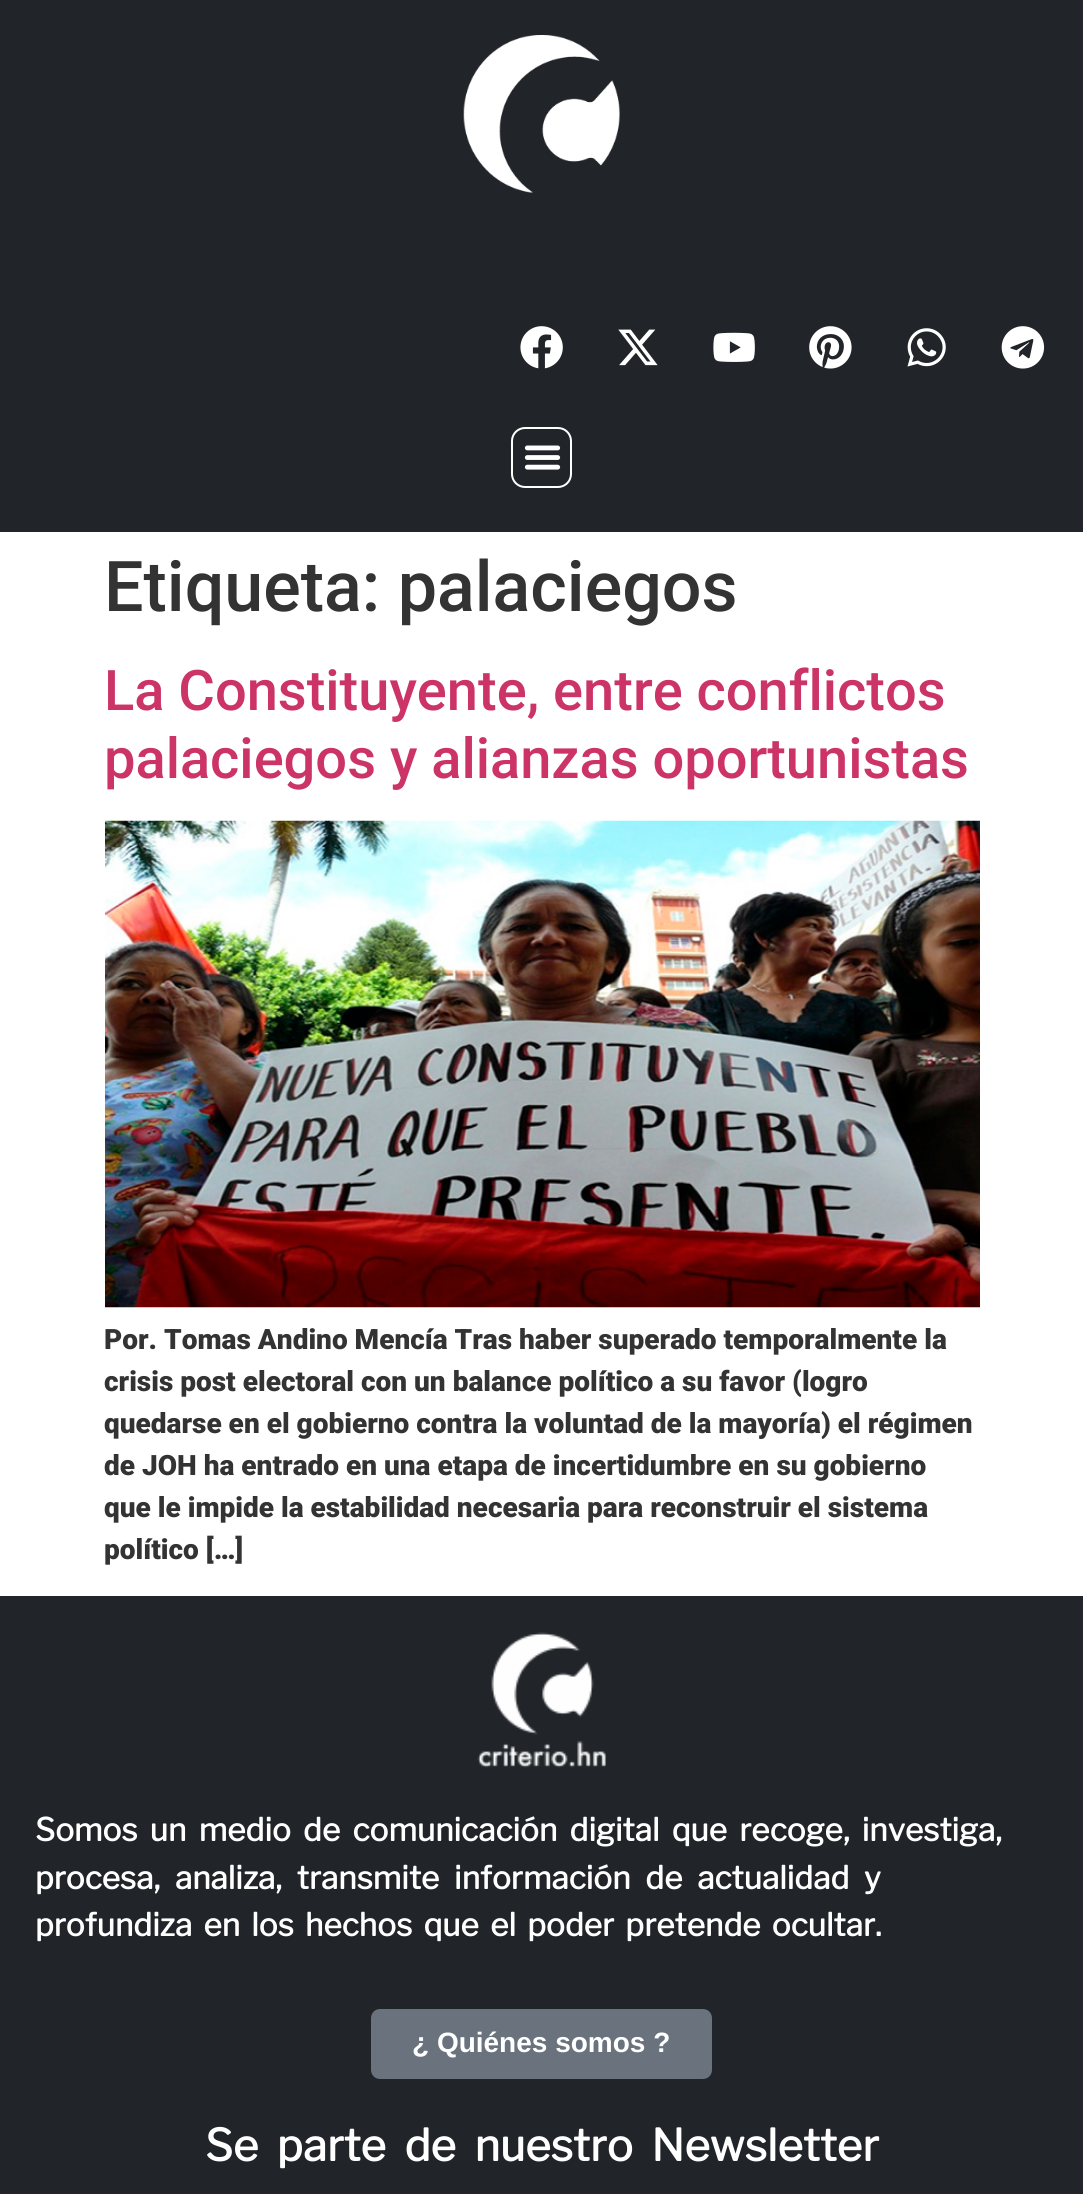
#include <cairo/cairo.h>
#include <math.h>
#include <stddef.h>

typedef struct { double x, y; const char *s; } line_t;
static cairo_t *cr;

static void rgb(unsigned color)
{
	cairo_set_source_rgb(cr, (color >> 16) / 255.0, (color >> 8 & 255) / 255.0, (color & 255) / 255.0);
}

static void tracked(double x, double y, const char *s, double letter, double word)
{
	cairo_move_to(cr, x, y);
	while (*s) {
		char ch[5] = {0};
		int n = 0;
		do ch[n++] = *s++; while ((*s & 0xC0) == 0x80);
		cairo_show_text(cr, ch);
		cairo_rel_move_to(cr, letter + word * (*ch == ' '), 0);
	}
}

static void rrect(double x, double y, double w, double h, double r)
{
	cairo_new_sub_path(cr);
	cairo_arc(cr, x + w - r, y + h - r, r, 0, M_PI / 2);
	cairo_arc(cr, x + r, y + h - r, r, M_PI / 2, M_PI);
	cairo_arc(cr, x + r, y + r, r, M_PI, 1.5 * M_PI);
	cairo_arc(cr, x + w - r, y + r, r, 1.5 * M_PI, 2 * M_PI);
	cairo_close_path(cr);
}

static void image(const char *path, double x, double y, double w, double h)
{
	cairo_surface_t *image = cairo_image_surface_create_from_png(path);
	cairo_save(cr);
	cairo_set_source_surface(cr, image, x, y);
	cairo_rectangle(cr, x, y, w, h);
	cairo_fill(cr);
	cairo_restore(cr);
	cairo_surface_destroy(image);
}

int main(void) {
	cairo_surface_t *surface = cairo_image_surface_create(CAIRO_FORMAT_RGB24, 1083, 2194);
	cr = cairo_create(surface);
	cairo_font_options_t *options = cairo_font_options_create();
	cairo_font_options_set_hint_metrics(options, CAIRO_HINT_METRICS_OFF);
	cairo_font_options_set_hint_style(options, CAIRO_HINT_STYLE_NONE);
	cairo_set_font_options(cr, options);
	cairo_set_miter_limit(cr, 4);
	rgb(0xffffff);
	cairo_paint(cr);
	rgb(0x212529);
	cairo_rectangle(cr, 0, 0, 1083, 532);
	cairo_fill(cr);
	image("img/1.png", 463, 35, 157, 158);
	image("img/2.png", 520, 326, 43, 43);
	image("img/3.png", 618, 329, 40, 37);
	image("img/4.png", 713, 332, 42, 30);
	image("img/5.png", 809, 326, 43, 43);
	image("img/6.png", 907, 328, 39, 39);
	image("img/7.png", 1001, 326, 44, 43);
	rrect(512, 428, 59, 59, 13);
	rgb(0xffffff);
	cairo_stroke(cr);
	image("img/8.png", 524, 445, 37, 25);
	image("img/9.png", 105, 820, 875, 488);
	rgb(0x212529);
	cairo_rectangle(cr, 0, 1596, 1083, 598);
	cairo_fill(cr);
	image("img/10.png", 477, 1632, 129, 136);
	rgb(0x69727d);
	rrect(371, 2009, 341, 70, 9);
	cairo_fill(cr);
	cairo_select_font_face(cr, "Roboto Medium", CAIRO_FONT_SLANT_NORMAL, CAIRO_FONT_WEIGHT_NORMAL);
	cairo_set_font_size(cr, 70);
	rgb(0x333333);
	cairo_move_to(cr, 104, 611);
	cairo_show_text(cr, "Etiqueta: palaciegos");
	cairo_set_font_size(cr, 56);
	rgb(0xcc3366);
	cairo_move_to(cr, 104, 710);
	cairo_show_text(cr, "La Constituyente, entre conflictos");
	cairo_move_to(cr, 104, 778);
	cairo_show_text(cr, "palaciegos y alianzas oportunistas");
	cairo_select_font_face(cr, "Roboto Black", CAIRO_FONT_SLANT_NORMAL, CAIRO_FONT_WEIGHT_NORMAL);
	cairo_set_font_size(cr, 28);
	rgb(0x333333);
	{
		static const line_t items[] = {
			{104, 1349, "Por. Tomas Andino Mencía Tras haber superado temporalmente la"},
			{104, 1391, "crisis post electoral con un balance político a su favor (logro"},
			{104, 1433, "quedarse en el gobierno contra la voluntad de la mayoría) el régimen"},
			{104, 1475, "de JOH ha entrado en una etapa de incertidumbre en su gobierno"},
			{104, 1517, "que le impide la estabilidad necesaria para reconstruir el sistema"},
			{104, 1559, "político […]"},
		};
		for (size_t i = 0; i < sizeof items / sizeof *items; i++) {
			cairo_move_to(cr, items[i].x, items[i].y);
			cairo_show_text(cr, items[i].s);
		}
	}
	cairo_select_font_face(cr, "Libre Franklin", CAIRO_FONT_SLANT_NORMAL, CAIRO_FONT_WEIGHT_BOLD);
	cairo_set_font_size(cr, 31.5);
	rgb(0xffffff);
	tracked(35, 1841, "Somos un medio de comunicación digital que recoge, investiga,", 0, 5.5);
	tracked(35, 1889, "procesa, analiza, transmite información de actualidad y", 0, 8);
	tracked(35, 1936, "profundiza en los hechos que el poder pretende ocultar.", 0, 4.5);
	cairo_select_font_face(cr, "Liberation Sans", CAIRO_FONT_SLANT_NORMAL, CAIRO_FONT_WEIGHT_BOLD);
	cairo_set_font_size(cr, 28);
	cairo_move_to(cr, 412, 2052);
	cairo_show_text(cr, "¿ Quiénes somos ?");
	cairo_select_font_face(cr, "Libre Franklin", CAIRO_FONT_SLANT_NORMAL, CAIRO_FONT_WEIGHT_BOLD);
	cairo_set_font_size(cr, 43.75);
	tracked(205, 2161, "Se parte de nuestro Newsletter", 0, 9);
	cairo_surface_write_to_png(surface, "page.png");
	cairo_font_options_destroy(options);
	cairo_destroy(cr);
	cairo_surface_destroy(surface);
	return 0;
}
